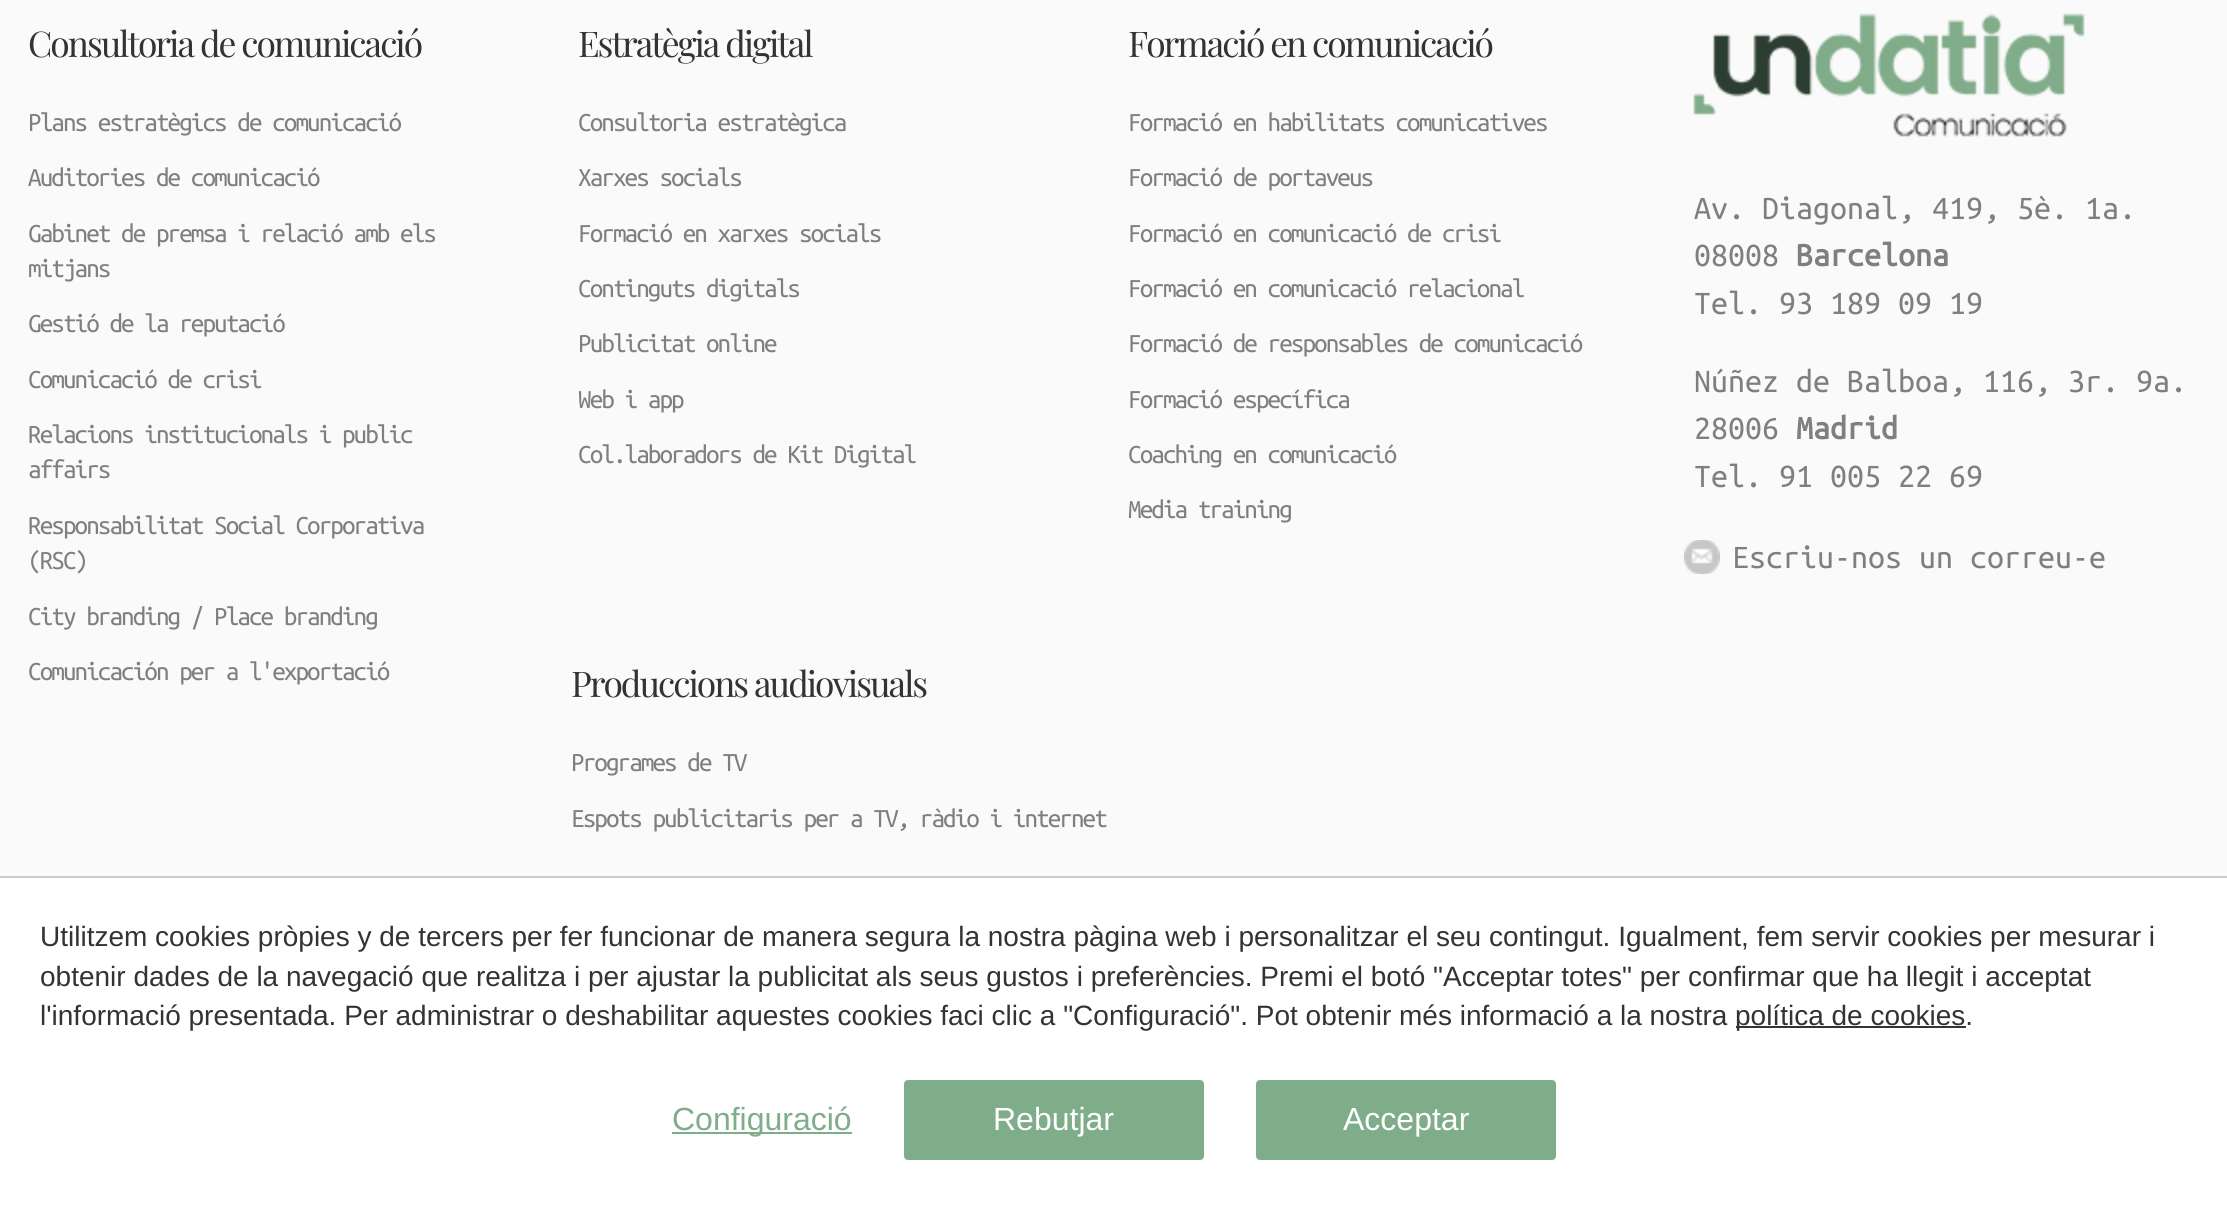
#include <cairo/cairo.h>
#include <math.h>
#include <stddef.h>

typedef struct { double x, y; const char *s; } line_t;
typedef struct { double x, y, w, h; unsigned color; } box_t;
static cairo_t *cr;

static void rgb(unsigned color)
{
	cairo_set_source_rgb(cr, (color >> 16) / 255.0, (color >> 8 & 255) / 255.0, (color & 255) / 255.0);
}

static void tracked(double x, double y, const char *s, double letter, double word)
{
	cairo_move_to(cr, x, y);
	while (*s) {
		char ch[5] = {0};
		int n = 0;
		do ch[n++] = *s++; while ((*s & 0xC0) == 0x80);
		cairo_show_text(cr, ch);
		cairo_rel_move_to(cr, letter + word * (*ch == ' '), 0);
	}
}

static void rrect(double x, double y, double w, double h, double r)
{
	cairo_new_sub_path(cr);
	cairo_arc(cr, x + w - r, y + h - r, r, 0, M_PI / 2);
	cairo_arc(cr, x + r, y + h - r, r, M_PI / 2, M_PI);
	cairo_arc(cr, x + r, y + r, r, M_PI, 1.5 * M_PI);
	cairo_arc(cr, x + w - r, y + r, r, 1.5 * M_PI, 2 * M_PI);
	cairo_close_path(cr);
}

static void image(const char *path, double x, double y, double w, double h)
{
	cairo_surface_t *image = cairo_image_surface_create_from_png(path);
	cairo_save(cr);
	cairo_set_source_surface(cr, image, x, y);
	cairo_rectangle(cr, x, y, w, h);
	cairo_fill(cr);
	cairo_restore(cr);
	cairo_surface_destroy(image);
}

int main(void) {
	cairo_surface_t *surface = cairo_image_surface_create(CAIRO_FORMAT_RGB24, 2227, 1207);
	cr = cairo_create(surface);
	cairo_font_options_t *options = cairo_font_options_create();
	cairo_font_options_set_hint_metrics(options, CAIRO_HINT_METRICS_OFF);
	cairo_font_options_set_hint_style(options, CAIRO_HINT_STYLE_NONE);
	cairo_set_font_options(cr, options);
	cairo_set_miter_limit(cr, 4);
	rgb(0xfbfafa);
	cairo_paint(cr);
	image("img/1.png", 1693, 13, 392, 124);
	image("img/2.png", 1684, 540, 36, 34);
	{
		static const box_t items[] = {
			{0, 878, 2227, 329, 0xffffff},
			{0, 876, 2227, 2, 0xcccccc},
			{1736, 1026, 230, 2, 0x333333},
			{672, 1132, 180, 2, 0x7fad8a},
		};
		for (size_t i = 0; i < sizeof items / sizeof *items; i++) {
			rgb(items[i].color);
			cairo_rectangle(cr, items[i].x, items[i].y, items[i].w, items[i].h);
			cairo_fill(cr);
		}
	}
	rrect(905, 1081, 298, 78, 3);
	cairo_fill_preserve(cr);
	cairo_stroke(cr);
	rrect(1257, 1081, 298, 78, 3);
	cairo_fill_preserve(cr);
	cairo_stroke(cr);
	cairo_select_font_face(cr, "Playfair Display", CAIRO_FONT_SLANT_NORMAL, CAIRO_FONT_WEIGHT_NORMAL);
	cairo_set_font_size(cr, 35.4);
	rgb(0x333333);
	tracked(28, 57, "Consultoria de comunicació", -2, 0);
	cairo_select_font_face(cr, "Ubuntu Mono", CAIRO_FONT_SLANT_NORMAL, CAIRO_FONT_WEIGHT_NORMAL);
	cairo_set_font_size(cr, 27.25);
	rgb(0x7f7f7f);
	{
		static const line_t items[] = {
			{28, 131, "Plans estratègics de comunicació"},
			{28, 186, "Auditories de comunicació"},
			{28, 242, "Gabinet de premsa i relació amb els"},
			{28, 277, "mitjans"},
			{28, 332, "Gestió de la reputació"},
			{28, 388, "Comunicació de crisi"},
			{28, 443, "Relacions institucionals i public"},
			{28, 478, "affairs"},
			{28, 534, "Responsabilitat Social Corporativa"},
			{28, 569, "(RSC)"},
			{28, 625, "City branding / Place branding"},
			{28, 680, "Comunicación per a l'exportació"},
		};
		for (size_t i = 0; i < sizeof items / sizeof *items; i++) {
			tracked(items[i].x, items[i].y, items[i].s, -2, 0);
		}
	}
	cairo_select_font_face(cr, "Playfair Display", CAIRO_FONT_SLANT_NORMAL, CAIRO_FONT_WEIGHT_NORMAL);
	cairo_set_font_size(cr, 35.4);
	rgb(0x333333);
	tracked(578, 57, "Estratègia digital", -2, 0);
	cairo_select_font_face(cr, "Ubuntu Mono", CAIRO_FONT_SLANT_NORMAL, CAIRO_FONT_WEIGHT_NORMAL);
	cairo_set_font_size(cr, 27.25);
	rgb(0x7f7f7f);
	{
		static const line_t items[] = {
			{578, 131, "Consultoria estratègica"},
			{578, 186, "Xarxes socials"},
			{578, 242, "Formació en xarxes socials"},
			{578, 297, "Continguts digitals"},
			{578, 352, "Publicitat online"},
			{578, 408, "Web i app"},
			{578, 463, "Col.laboradors de Kit Digital"},
		};
		for (size_t i = 0; i < sizeof items / sizeof *items; i++) {
			tracked(items[i].x, items[i].y, items[i].s, -2, 0);
		}
	}
	cairo_select_font_face(cr, "Playfair Display", CAIRO_FONT_SLANT_NORMAL, CAIRO_FONT_WEIGHT_NORMAL);
	cairo_set_font_size(cr, 35.4);
	rgb(0x333333);
	tracked(1128, 57, "Formació en comunicació", -2, 0);
	cairo_select_font_face(cr, "Ubuntu Mono", CAIRO_FONT_SLANT_NORMAL, CAIRO_FONT_WEIGHT_NORMAL);
	cairo_set_font_size(cr, 27.25);
	rgb(0x7f7f7f);
	{
		static const line_t items[] = {
			{1128, 131, "Formació en habilitats comunicatives"},
			{1128, 186, "Formació de portaveus"},
			{1128, 242, "Formació en comunicació de crisi"},
			{1128, 297, "Formació en comunicació relacional"},
			{1128, 352, "Formació de responsables de comunicació"},
			{1128, 408, "Formació específica"},
			{1128, 463, "Coaching en comunicació"},
			{1128, 518, "Media training"},
		};
		for (size_t i = 0; i < sizeof items / sizeof *items; i++) {
			tracked(items[i].x, items[i].y, items[i].s, -2, 0);
		}
	}
	cairo_select_font_face(cr, "Playfair Display", CAIRO_FONT_SLANT_NORMAL, CAIRO_FONT_WEIGHT_NORMAL);
	cairo_set_font_size(cr, 35.4);
	rgb(0x333333);
	tracked(571, 697, "Produccions audiovisuals", -2, 0);
	cairo_select_font_face(cr, "Ubuntu Mono", CAIRO_FONT_SLANT_NORMAL, CAIRO_FONT_WEIGHT_NORMAL);
	cairo_set_font_size(cr, 27.25);
	rgb(0x7f7f7f);
	tracked(571, 771, "Programes de TV", -2, 0);
	tracked(571, 827, "Espots publicitaris per a TV, ràdio i internet", -2, 0);
	cairo_set_font_size(cr, 34);
	cairo_move_to(cr, 1694, 219);
	cairo_show_text(cr, "Av. Diagonal, 419, 5è. 1a.");
	cairo_move_to(cr, 1694, 266);
	cairo_show_text(cr, "08008");
	cairo_select_font_face(cr, "Ubuntu Mono", CAIRO_FONT_SLANT_NORMAL, CAIRO_FONT_WEIGHT_BOLD);
	cairo_move_to(cr, 1796, 266);
	cairo_show_text(cr, "Barcelona");
	cairo_select_font_face(cr, "Ubuntu Mono", CAIRO_FONT_SLANT_NORMAL, CAIRO_FONT_WEIGHT_NORMAL);
	{
		static const line_t items[] = {
			{1694, 314, "Tel. 93 189 09 19"},
			{1694, 392, "Núñez de Balboa, 116, 3r. 9a."},
			{1694, 439, "28006"},
		};
		for (size_t i = 0; i < sizeof items / sizeof *items; i++) {
			cairo_move_to(cr, items[i].x, items[i].y);
			cairo_show_text(cr, items[i].s);
		}
	}
	cairo_select_font_face(cr, "Ubuntu Mono", CAIRO_FONT_SLANT_NORMAL, CAIRO_FONT_WEIGHT_BOLD);
	cairo_move_to(cr, 1796, 439);
	cairo_show_text(cr, "Madrid");
	cairo_select_font_face(cr, "Ubuntu Mono", CAIRO_FONT_SLANT_NORMAL, CAIRO_FONT_WEIGHT_NORMAL);
	cairo_move_to(cr, 1694, 487);
	cairo_show_text(cr, "Tel. 91 005 22 69");
	cairo_move_to(cr, 1732, 568);
	cairo_show_text(cr, "Escriu-nos un correu-e");
	cairo_select_font_face(cr, "Liberation Sans", CAIRO_FONT_SLANT_NORMAL, CAIRO_FONT_WEIGHT_NORMAL);
	cairo_set_font_size(cr, 28);
	rgb(0x333333);
	{
		static const line_t items[] = {
			{40, 946, "Utilitzem cookies pròpies y de tercers per fer funcionar de manera segura la nostra pàgina web i personalitzar el seu contingut. Igualment, fem servir cookies per mesurar i"},
			{40, 986, "obtenir dades de la navegació que realitza i per ajustar la publicitat als seus gustos i preferències. Premi el botó \"Acceptar totes\" per confirmar que ha llegit i acceptat"},
			{40, 1025, "l'informació presentada. Per administrar o deshabilitar aquestes cookies faci clic a \"Configuració\". Pot obtenir més informació a la nostra"},
			{1735, 1025, "política de cookies."},
		};
		for (size_t i = 0; i < sizeof items / sizeof *items; i++) {
			cairo_move_to(cr, items[i].x, items[i].y);
			cairo_show_text(cr, items[i].s);
		}
	}
	cairo_set_font_size(cr, 32);
	rgb(0x7fad8a);
	cairo_move_to(cr, 672, 1130);
	cairo_show_text(cr, "Configuració");
	rgb(0xffffff);
	cairo_move_to(cr, 993, 1130);
	cairo_show_text(cr, "Rebutjar");
	cairo_move_to(cr, 1343, 1130);
	cairo_show_text(cr, "Acceptar");
	cairo_surface_write_to_png(surface, "page.png");
	cairo_font_options_destroy(options);
	cairo_destroy(cr);
	cairo_surface_destroy(surface);
	return 0;
}
